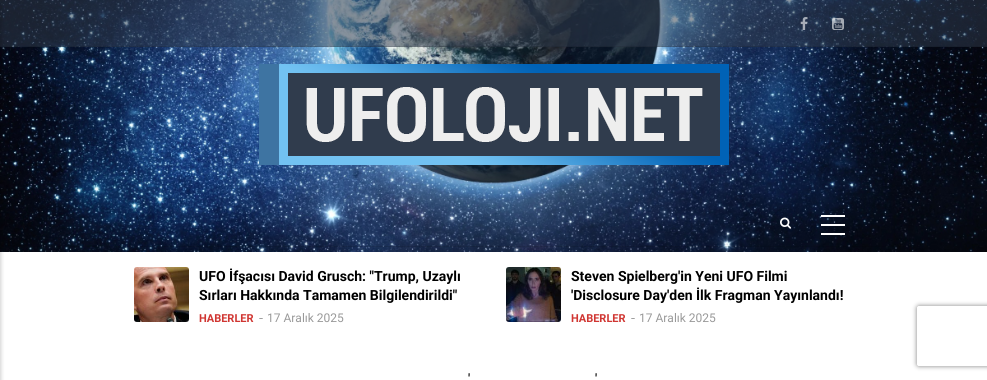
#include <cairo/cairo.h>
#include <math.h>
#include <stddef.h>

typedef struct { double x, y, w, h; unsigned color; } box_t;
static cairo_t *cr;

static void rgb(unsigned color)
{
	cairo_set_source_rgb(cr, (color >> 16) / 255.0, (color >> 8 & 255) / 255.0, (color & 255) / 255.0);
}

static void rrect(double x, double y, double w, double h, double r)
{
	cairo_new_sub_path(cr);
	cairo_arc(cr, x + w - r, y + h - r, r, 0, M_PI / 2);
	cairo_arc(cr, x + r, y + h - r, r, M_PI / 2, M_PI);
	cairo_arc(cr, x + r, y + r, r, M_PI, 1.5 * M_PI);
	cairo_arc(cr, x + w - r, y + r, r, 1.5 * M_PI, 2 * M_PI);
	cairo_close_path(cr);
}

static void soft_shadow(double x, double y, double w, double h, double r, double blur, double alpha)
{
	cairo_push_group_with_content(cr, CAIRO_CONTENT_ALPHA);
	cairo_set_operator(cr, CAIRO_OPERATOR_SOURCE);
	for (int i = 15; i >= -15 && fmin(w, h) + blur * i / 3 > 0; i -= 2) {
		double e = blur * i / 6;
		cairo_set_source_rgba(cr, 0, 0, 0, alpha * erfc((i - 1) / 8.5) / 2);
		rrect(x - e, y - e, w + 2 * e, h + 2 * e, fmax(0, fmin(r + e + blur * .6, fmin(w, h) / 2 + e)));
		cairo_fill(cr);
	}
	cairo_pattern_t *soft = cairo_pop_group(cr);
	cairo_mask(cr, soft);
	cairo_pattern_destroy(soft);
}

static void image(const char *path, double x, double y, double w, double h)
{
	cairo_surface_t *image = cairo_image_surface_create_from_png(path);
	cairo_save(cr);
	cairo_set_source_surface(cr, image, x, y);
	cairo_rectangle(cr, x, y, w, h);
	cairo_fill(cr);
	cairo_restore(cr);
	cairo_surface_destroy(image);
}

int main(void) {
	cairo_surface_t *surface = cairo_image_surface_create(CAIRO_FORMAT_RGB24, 987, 380);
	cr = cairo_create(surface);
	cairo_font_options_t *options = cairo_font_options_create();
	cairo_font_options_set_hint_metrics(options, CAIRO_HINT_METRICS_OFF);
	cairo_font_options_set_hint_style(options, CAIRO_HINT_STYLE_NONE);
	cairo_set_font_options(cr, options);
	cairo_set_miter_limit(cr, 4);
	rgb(0xffffff);
	cairo_paint(cr);
	image("img/1.png", 0, 0, 987, 252);
	cairo_set_source_rgba(cr, 0.188, 0.235, 0.302, 0.52);
	cairo_rectangle(cr, 0, 0, 987, 47);
	cairo_fill(cr);
	cairo_set_source_rgba(cr, 0, 0, 0, 0.1);
	cairo_rectangle(cr, 0, 46, 987, 1);
	cairo_fill(cr);
	image("img/2.png", 800, 17, 8, 13);
	image("img/3.png", 832, 18, 12, 12);
	cairo_rectangle(cr, 29, 246, 884, 1);
	cairo_fill(cr);
	rgb(0x000000);
	soft_shadow(-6, 3, 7, 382, 0, 2, 0.2);
	cairo_arc(cr, 786, 223, 14.5, 0, 2 * M_PI);
	cairo_set_source_rgba(cr, 0, 0, 0, 0.1);
	cairo_set_line_width(cr, 1);
	cairo_stroke(cr);
	image("img/4.png", 780, 217, 12, 12);
	{
		static const box_t items[] = {
			{821, 215, 24, 2, 0xffffff},
			{821, 224, 24, 2, 0xffffff},
			{821, 233, 24, 2, 0xffffff},
		};
		for (size_t i = 0; i < sizeof items / sizeof *items; i++) {
			rgb(items[i].color);
			cairo_rectangle(cr, items[i].x, items[i].y, items[i].w, items[i].h);
			cairo_fill(cr);
		}
	}
	image("img/5.png", 259, 64, 470, 101);
	image("img/6.png", 134, 267, 55, 55);
	rgb(0x9c9c9c);
	cairo_new_path(cr);
	cairo_move_to(cr, 261, 318);
	cairo_curve_to(cr, 262, 318, 263, 318, 263, 318.5);
	cairo_curve_to(cr, 263, 319, 262, 319, 261, 319);
	cairo_curve_to(cr, 260, 319, 259, 319, 259, 318.5);
	cairo_curve_to(cr, 259, 318, 260, 318, 261, 318);
	cairo_close_path(cr);
	cairo_fill(cr);
	image("img/7.png", 506, 267, 55, 55);
	cairo_new_path(cr);
	cairo_move_to(cr, 633, 318);
	cairo_curve_to(cr, 634, 318, 635, 318, 635, 318.5);
	cairo_curve_to(cr, 635, 319, 634, 319, 633, 319);
	cairo_curve_to(cr, 632, 319, 631, 319, 631, 318.5);
	cairo_curve_to(cr, 631, 318, 632, 318, 633, 318);
	cairo_close_path(cr);
	cairo_fill(cr);
	cairo_save(cr);
	cairo_set_fill_rule(cr, CAIRO_FILL_RULE_EVEN_ODD);
	cairo_new_path(cr);
	cairo_move_to(cr, 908, 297);
	cairo_line_to(cr, 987, 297);
	cairo_line_to(cr, 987, 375);
	cairo_line_to(cr, 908, 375);
	cairo_close_path(cr);
	cairo_move_to(cr, 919, 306);
	cairo_line_to(cr, 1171, 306);
	cairo_curve_to(cr, 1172, 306, 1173, 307, 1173, 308);
	cairo_line_to(cr, 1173, 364);
	cairo_curve_to(cr, 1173, 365, 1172, 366, 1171, 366);
	cairo_line_to(cr, 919, 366);
	cairo_curve_to(cr, 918, 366, 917, 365, 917, 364);
	cairo_line_to(cr, 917, 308);
	cairo_curve_to(cr, 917, 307, 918, 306, 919, 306);
	cairo_close_path(cr);
	cairo_clip(cr);
	rgb(0x808080);
	soft_shadow(917, 306, 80, 60, 2, 2.5, 1);
	cairo_restore(cr);
	cairo_select_font_face(cr, "Roboto", CAIRO_FONT_SLANT_NORMAL, CAIRO_FONT_WEIGHT_BOLD);
	cairo_set_font_size(cr, 14);
	rgb(0x000000);
	cairo_move_to(cr, 199, 281);
	cairo_show_text(cr, "UFO İfşacısı David Grusch: \"Trump, Uzaylı");
	cairo_move_to(cr, 199, 300);
	cairo_show_text(cr, "Sırları Hakkında Tamamen Bilgilendirildi\"");
	cairo_set_font_size(cr, 11);
	rgb(0xd03632);
	cairo_move_to(cr, 199, 322);
	cairo_show_text(cr, "HABERLER");
	cairo_select_font_face(cr, "Roboto", CAIRO_FONT_SLANT_NORMAL, CAIRO_FONT_WEIGHT_NORMAL);
	cairo_set_font_size(cr, 12);
	rgb(0x999999);
	cairo_move_to(cr, 267, 322);
	cairo_show_text(cr, "17 Aralık 2025");
	cairo_select_font_face(cr, "Roboto", CAIRO_FONT_SLANT_NORMAL, CAIRO_FONT_WEIGHT_BOLD);
	cairo_set_font_size(cr, 14);
	rgb(0x000000);
	cairo_move_to(cr, 571, 281);
	cairo_show_text(cr, "Steven Spielberg'in Yeni UFO Filmi");
	cairo_move_to(cr, 571, 300);
	cairo_show_text(cr, "'Disclosure Day'den İlk Fragman Yayınlandı!");
	cairo_set_font_size(cr, 11);
	rgb(0xd03632);
	cairo_move_to(cr, 571, 322);
	cairo_show_text(cr, "HABERLER");
	cairo_select_font_face(cr, "Roboto", CAIRO_FONT_SLANT_NORMAL, CAIRO_FONT_WEIGHT_NORMAL);
	cairo_set_font_size(cr, 12);
	rgb(0x999999);
	cairo_move_to(cr, 639, 322);
	cairo_show_text(cr, "17 Aralık 2025");
	cairo_select_font_face(cr, "Roboto Medium", CAIRO_FONT_SLANT_NORMAL, CAIRO_FONT_WEIGHT_NORMAL);
	cairo_set_font_size(cr, 13);
	rgb(0x000000);
	cairo_move_to(cr, 468, 383);
	cairo_show_text(cr, "'");
	cairo_move_to(cr, 595, 383);
	cairo_show_text(cr, "'");
	cairo_surface_write_to_png(surface, "page.png");
	cairo_font_options_destroy(options);
	cairo_destroy(cr);
	cairo_surface_destroy(surface);
	return 0;
}
